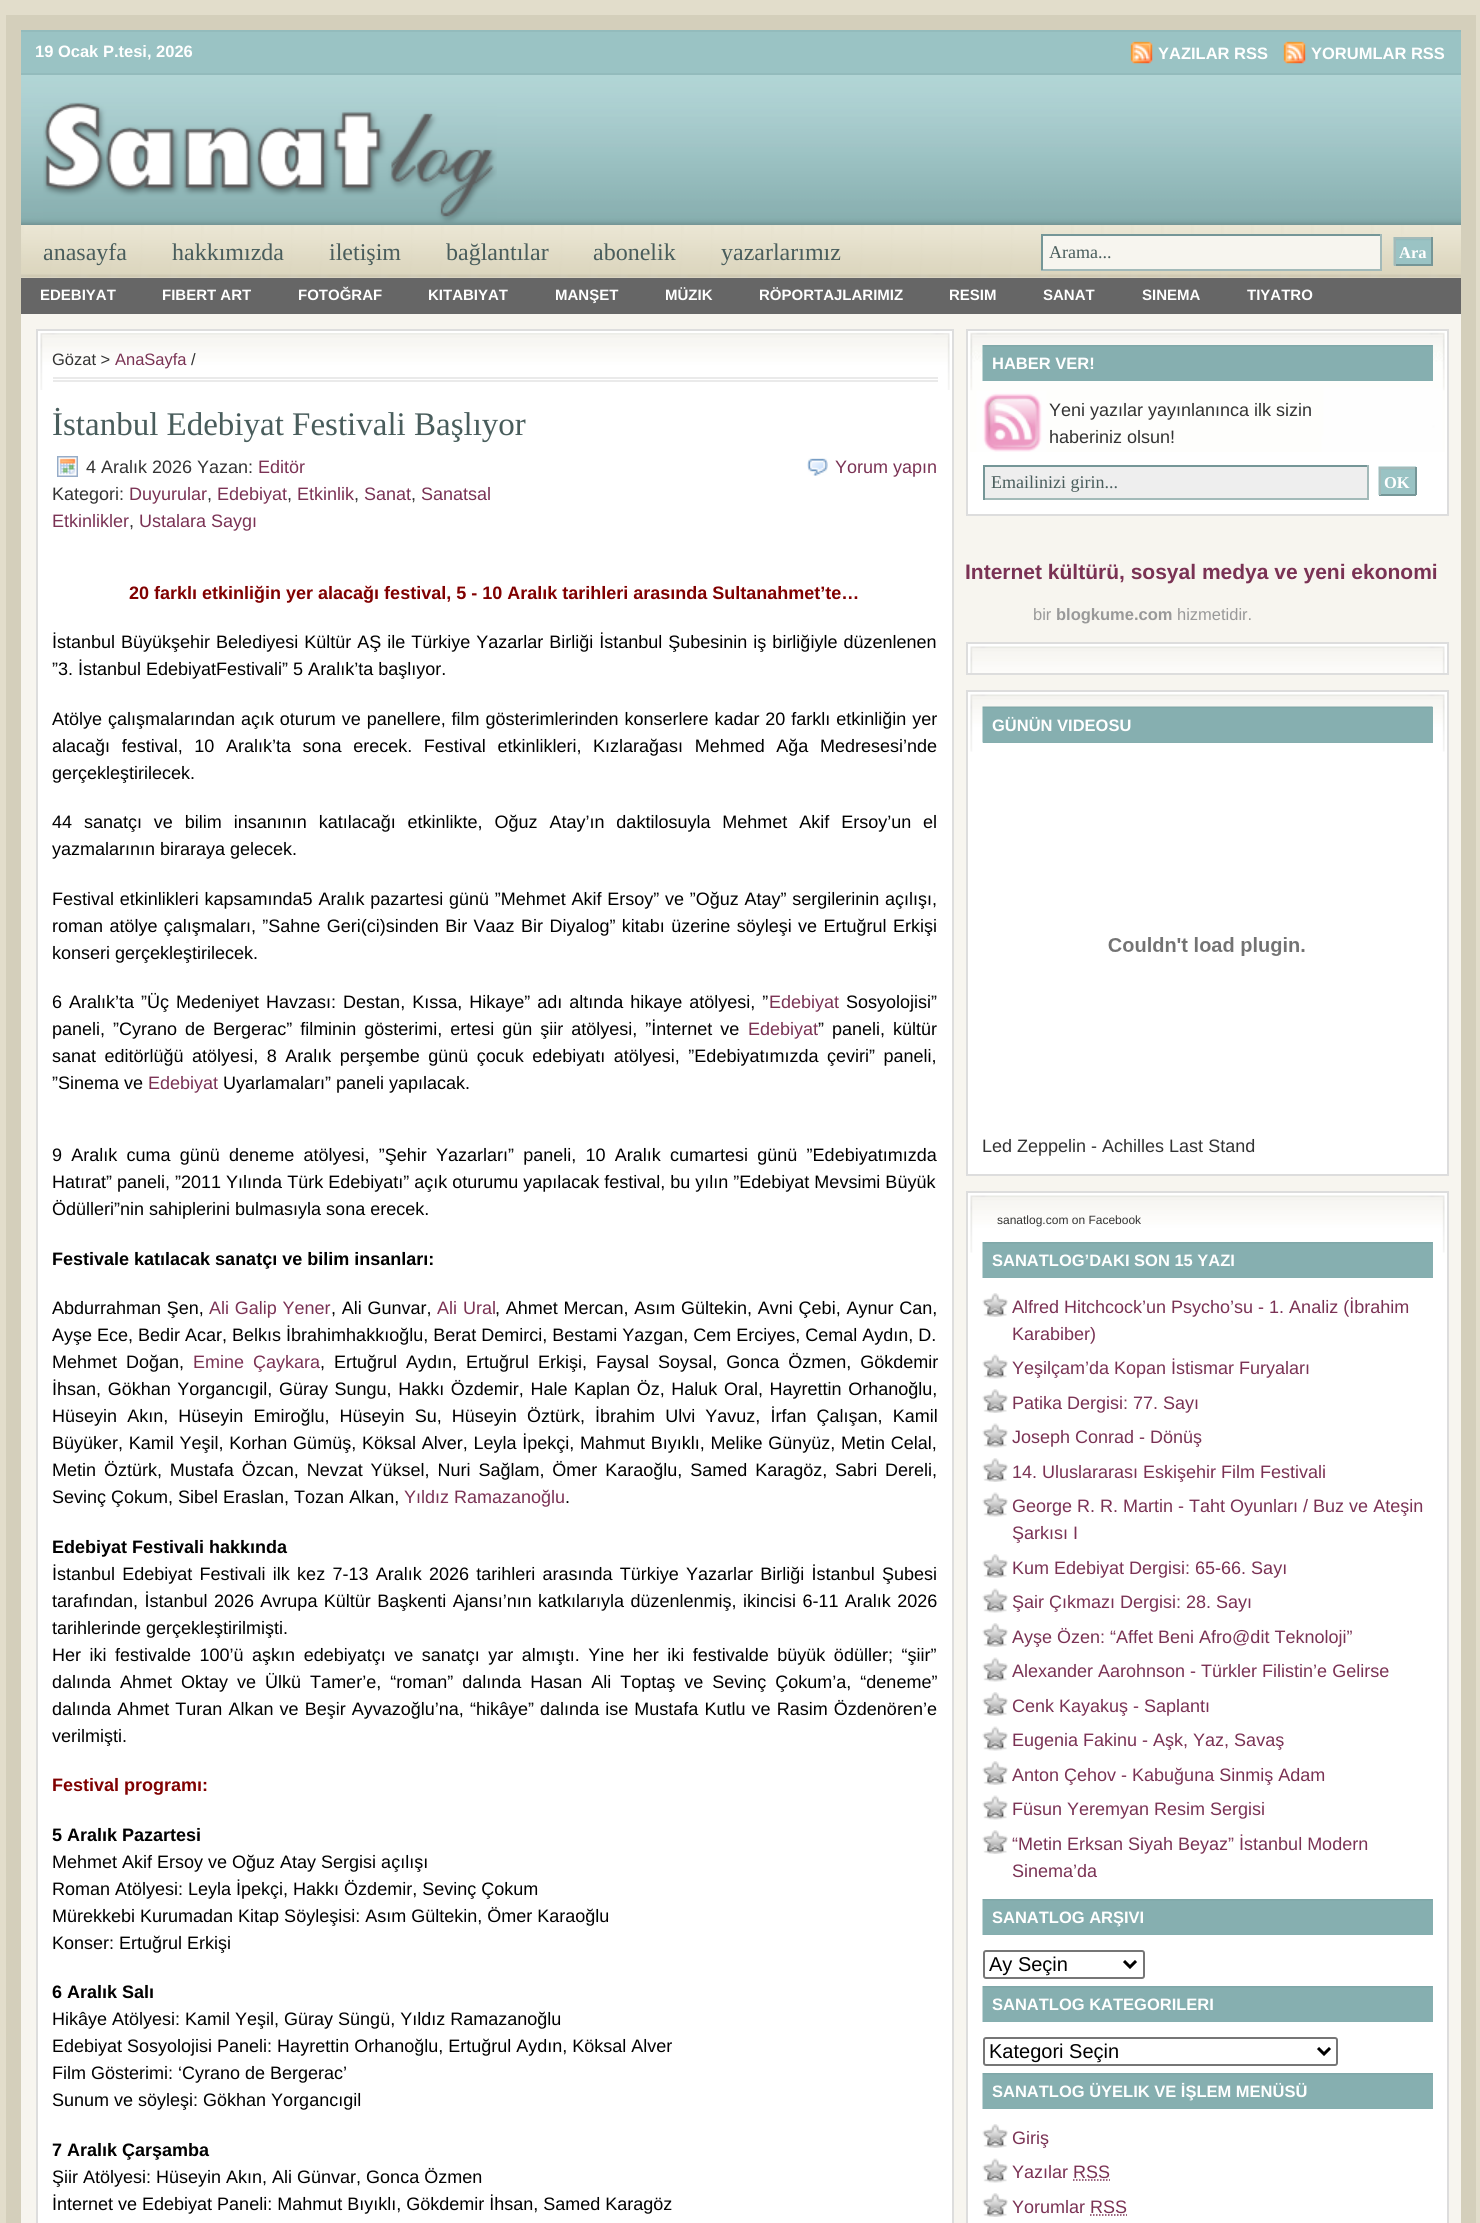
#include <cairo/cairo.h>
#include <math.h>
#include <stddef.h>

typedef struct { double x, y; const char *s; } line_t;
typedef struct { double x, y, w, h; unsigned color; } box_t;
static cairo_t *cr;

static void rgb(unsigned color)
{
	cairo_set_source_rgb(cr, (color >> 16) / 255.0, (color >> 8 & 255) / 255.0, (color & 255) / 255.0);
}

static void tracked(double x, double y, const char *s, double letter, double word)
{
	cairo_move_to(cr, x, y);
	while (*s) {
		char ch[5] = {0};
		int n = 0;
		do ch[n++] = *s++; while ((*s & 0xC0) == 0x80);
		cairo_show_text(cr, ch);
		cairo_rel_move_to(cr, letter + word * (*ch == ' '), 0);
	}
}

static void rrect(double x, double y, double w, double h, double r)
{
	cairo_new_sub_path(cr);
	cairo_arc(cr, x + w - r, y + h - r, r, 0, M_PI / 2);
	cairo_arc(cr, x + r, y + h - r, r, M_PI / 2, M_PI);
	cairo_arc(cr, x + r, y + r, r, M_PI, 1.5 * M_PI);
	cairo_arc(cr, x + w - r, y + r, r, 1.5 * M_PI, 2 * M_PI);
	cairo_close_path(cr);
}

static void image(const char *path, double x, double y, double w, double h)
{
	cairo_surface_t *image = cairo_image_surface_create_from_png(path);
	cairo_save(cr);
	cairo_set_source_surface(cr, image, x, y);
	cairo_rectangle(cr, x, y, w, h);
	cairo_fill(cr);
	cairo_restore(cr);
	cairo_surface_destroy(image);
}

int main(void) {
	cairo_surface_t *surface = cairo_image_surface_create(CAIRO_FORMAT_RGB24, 1480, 2223);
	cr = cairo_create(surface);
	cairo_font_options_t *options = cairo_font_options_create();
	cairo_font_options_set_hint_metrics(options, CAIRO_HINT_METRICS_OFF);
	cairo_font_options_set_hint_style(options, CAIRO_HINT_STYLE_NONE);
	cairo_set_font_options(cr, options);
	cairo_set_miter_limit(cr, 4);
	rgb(0xe2ddcb);
	cairo_paint(cr);
	rgb(0xf7f5ef);
	cairo_rectangle(cr, 21, 314, 1440, 1909);
	cairo_fill(cr);
	cairo_rectangle(cr, 13.5, 22.5, 1455, 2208);
	rgb(0xd4cfbb);
	cairo_set_line_width(cr, 15);
	cairo_stroke(cr);
	rgb(0x93bbbc);
	cairo_rectangle(cr, 21, 30, 1440, 45);
	cairo_fill(cr);
	rgb(0x9ac3c4);
	cairo_rectangle(cr, 21, 32, 1440, 41);
	cairo_fill(cr);
	image("img/1.png", 1130, 41, 23, 23);
	image("img/1.png", 1283, 41, 23, 23);
	image("img/2.png", 21, 75, 1440, 150);
	image("img/3.png", 43, 102, 454, 121);
	image("img/4.png", 21, 225, 1440, 53);
	{
		static const box_t items[] = {
			{1043, 236, 337, 33, 0xf7f5ef},
			{1041, 234, 341, 2, 0x759697},
			{1380, 234, 2, 36, 0xa3bab9},
			{1041, 269, 341, 2, 0xa3bab9},
			{1041, 234, 2, 36, 0x759697},
		};
		for (size_t i = 0; i < sizeof items / sizeof *items; i++) {
			rgb(items[i].color);
			cairo_rectangle(cr, items[i].x, items[i].y, items[i].w, items[i].h);
			cairo_fill(cr);
		}
	}
	image("img/5.png", 1393, 237, 38, 29);
	{
		static const box_t items[] = {
			{1394, 237, 39, 2, 0xa3bab9},
			{1431, 237, 2, 29, 0x759697},
			{1394, 264, 39, 2, 0x759697},
			{1394, 237, 2, 29, 0xa3bab9},
			{21, 278, 1440, 36, 0x666666},
			{38, 331, 914, 1892, 0xffffff},
		};
		for (size_t i = 0; i < sizeof items / sizeof *items; i++) {
			rgb(items[i].color);
			cairo_rectangle(cr, items[i].x, items[i].y, items[i].w, items[i].h);
			cairo_fill(cr);
		}
	}
	image("img/6.png", 40, 333, 910, 57);
	cairo_rectangle(cr, 37, 330, 916, 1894);
	rgb(0xdddddd);
	cairo_set_line_width(cr, 2);
	cairo_stroke(cr);
	rgb(0xeaeaea);
	cairo_rectangle(cr, 53, 377, 885, 2);
	cairo_fill(cr);
	cairo_rectangle(cr, 53, 380, 885, 2);
	cairo_fill(cr);
	image("img/7.png", 57, 456, 21, 21);
	image("img/8.png", 807, 458, 21, 18);
	rgb(0xffffff);
	cairo_rectangle(cr, 968, 331, 479, 183);
	cairo_fill(cr);
	image("img/9.png", 970, 332, 475, 120);
	cairo_rectangle(cr, 967, 330, 481, 185);
	rgb(0xdddddd);
	cairo_stroke(cr);
	rgb(0x86afb0);
	cairo_rectangle(cr, 1432, 345, 1, 36);
	cairo_fill(cr);
	image("img/10.png", 982, 345, 451, 36);
	{
		static const box_t items[] = {
			{985, 467, 382, 31, 0xeeeeee},
			{983, 465, 385, 2, 0x759697},
			{1367, 465, 2, 35, 0xa3bab9},
			{983, 498, 385, 2, 0xa3bab9},
			{983, 465, 2, 35, 0x759697},
		};
		for (size_t i = 0; i < sizeof items / sizeof *items; i++) {
			rgb(items[i].color);
			cairo_rectangle(cr, items[i].x, items[i].y, items[i].w, items[i].h);
			cairo_fill(cr);
		}
	}
	image("img/11.png", 1378, 466, 38, 29);
	{
		static const box_t items[] = {
			{1379, 467, 37, 2, 0xa3bab9},
			{1415, 467, 2, 28, 0x759697},
			{1379, 494, 37, 2, 0x759697},
			{1379, 467, 2, 28, 0xa3bab9},
			{968, 644, 479, 29, 0xffffff},
		};
		for (size_t i = 0; i < sizeof items / sizeof *items; i++) {
			rgb(items[i].color);
			cairo_rectangle(cr, items[i].x, items[i].y, items[i].w, items[i].h);
			cairo_fill(cr);
		}
	}
	image("img/12.png", 970, 646, 475, 27);
	cairo_rectangle(cr, 967, 643, 481, 31);
	rgb(0xdddddd);
	cairo_stroke(cr);
	rgb(0xffffff);
	cairo_rectangle(cr, 968, 692, 479, 482);
	cairo_fill(cr);
	image("img/13.png", 970, 694, 475, 58);
	cairo_rectangle(cr, 967, 691, 481, 484);
	rgb(0xdddddd);
	cairo_stroke(cr);
	rgb(0x86afb0);
	cairo_rectangle(cr, 983, 707, 450, 36);
	cairo_fill(cr);
	image("img/14.png", 982, 706, 451, 37);
	image("img/15.png", 1108, 937, 197, 19);
	rgb(0xffffff);
	cairo_rectangle(cr, 968, 1193, 479, 1030);
	cairo_fill(cr);
	image("img/13.png", 970, 1195, 475, 58);
	cairo_rectangle(cr, 967, 1192, 481, 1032);
	rgb(0xdddddd);
	cairo_stroke(cr);
	rgb(0x86afb0);
	cairo_rectangle(cr, 1432, 1242, 1, 36);
	cairo_fill(cr);
	image("img/16.png", 982, 1242, 451, 36);
	image("img/17.png", 982, 1293, 26, 24);
	image("img/18.png", 982, 1354, 26, 25);
	image("img/17.png", 982, 1389, 26, 24);
	image("img/18.png", 982, 1423, 26, 25);
	image("img/17.png", 982, 1458, 26, 24);
	image("img/18.png", 982, 1492, 26, 25);
	image("img/17.png", 982, 1554, 26, 24);
	image("img/18.png", 982, 1588, 26, 25);
	image("img/17.png", 982, 1623, 26, 24);
	image("img/18.png", 982, 1657, 26, 25);
	image("img/17.png", 982, 1692, 26, 24);
	image("img/18.png", 982, 1726, 26, 25);
	image("img/17.png", 982, 1761, 26, 24);
	image("img/18.png", 982, 1795, 26, 25);
	image("img/17.png", 982, 1830, 26, 24);
	cairo_rectangle(cr, 1432, 1899, 1, 36);
	cairo_fill(cr);
	image("img/19.png", 982, 1899, 451, 36);
	rrect(984, 1951, 160, 27, 2);
	rgb(0x767676);
	cairo_stroke(cr);
	cairo_new_path(cr);
	cairo_move_to(cr, 1124, 1961);
	cairo_line_to(cr, 1130, 1967);
	cairo_line_to(cr, 1136, 1961);
	rgb(0x000000);
	cairo_set_line_width(cr, 3);
	cairo_stroke(cr);
	rgb(0x86afb0);
	cairo_rectangle(cr, 1432, 1986, 1, 36);
	cairo_fill(cr);
	image("img/20.png", 982, 1986, 451, 36);
	rrect(984, 2038, 353, 27, 2);
	rgb(0x767676);
	cairo_set_line_width(cr, 2);
	cairo_stroke(cr);
	cairo_new_path(cr);
	cairo_move_to(cr, 1318, 2048);
	cairo_line_to(cr, 1324, 2054);
	cairo_line_to(cr, 1330, 2048);
	rgb(0x000000);
	cairo_set_line_width(cr, 3);
	cairo_stroke(cr);
	rgb(0x86afb0);
	cairo_rectangle(cr, 1432, 2073, 1, 36);
	cairo_fill(cr);
	image("img/21.png", 982, 2073, 451, 36);
	image("img/17.png", 982, 2124, 26, 24);
	image("img/18.png", 982, 2158, 26, 25);
	cairo_new_path(cr);
	cairo_move_to(cr, 1073, 2180);
	cairo_line_to(cr, 1110, 2180);
	rgb(0x7a3254);
	cairo_set_line_width(cr, 1.5);
	cairo_set_dash(cr, (double[]){1.5, 1.5}, 2, 0);
	cairo_stroke(cr);
	image("img/17.png", 982, 2193, 26, 24);
	cairo_new_path(cr);
	cairo_move_to(cr, 1090, 2215);
	cairo_line_to(cr, 1127, 2215);
	cairo_stroke(cr);
	cairo_select_font_face(cr, "Liberation Sans", CAIRO_FONT_SLANT_NORMAL, CAIRO_FONT_WEIGHT_BOLD);
	cairo_set_font_size(cr, 16.5);
	rgb(0xffffff);
	{
		static const line_t items[] = {
			{35, 57, "19 Ocak P.tesi, 2026"},
			{1158, 59, "YAZILAR RSS"},
			{1311, 59, "YORUMLAR RSS"},
		};
		for (size_t i = 0; i < sizeof items / sizeof *items; i++) {
			cairo_move_to(cr, items[i].x, items[i].y);
			cairo_show_text(cr, items[i].s);
		}
	}
	cairo_select_font_face(cr, "Liberation Serif", CAIRO_FONT_SLANT_NORMAL, CAIRO_FONT_WEIGHT_NORMAL);
	cairo_set_font_size(cr, 24);
	rgb(0x495d5c);
	{
		static const line_t items[] = {
			{43, 260, "anasayfa"},
			{172, 260, "hakkımızda"},
			{329, 260, "iletişim"},
			{446, 260, "bağlantılar"},
			{593, 260, "abonelik"},
			{721, 260, "yazarlarımız"},
		};
		for (size_t i = 0; i < sizeof items / sizeof *items; i++) {
			cairo_move_to(cr, items[i].x, items[i].y);
			cairo_show_text(cr, items[i].s);
		}
	}
	cairo_set_font_size(cr, 18);
	cairo_move_to(cr, 1049, 258);
	cairo_show_text(cr, "Arama...");
	cairo_select_font_face(cr, "Liberation Serif", CAIRO_FONT_SLANT_NORMAL, CAIRO_FONT_WEIGHT_BOLD);
	cairo_set_font_size(cr, 16.5);
	rgb(0xffffff);
	cairo_move_to(cr, 1399, 258);
	cairo_show_text(cr, "Ara");
	cairo_select_font_face(cr, "Liberation Sans", CAIRO_FONT_SLANT_NORMAL, CAIRO_FONT_WEIGHT_BOLD);
	cairo_set_font_size(cr, 15);
	{
		static const line_t items[] = {
			{40, 300, "EDEBIYAT"},
			{162, 300, "FIBERT ART"},
			{298, 300, "FOTOĞRAF"},
			{428, 300, "KITABIYAT"},
			{555, 300, "MANŞET"},
			{665, 300, "MÜZIK"},
			{759, 300, "RÖPORTAJLARIMIZ"},
			{949, 300, "RESIM"},
			{1043, 300, "SANAT"},
			{1142, 300, "SINEMA"},
			{1247, 300, "TIYATRO"},
		};
		for (size_t i = 0; i < sizeof items / sizeof *items; i++) {
			cairo_move_to(cr, items[i].x, items[i].y);
			cairo_show_text(cr, items[i].s);
		}
	}
	cairo_select_font_face(cr, "Liberation Sans", CAIRO_FONT_SLANT_NORMAL, CAIRO_FONT_WEIGHT_NORMAL);
	cairo_set_font_size(cr, 16.5);
	rgb(0x333333);
	cairo_move_to(cr, 52, 365);
	cairo_show_text(cr, "Gözat >");
	rgb(0x7a3254);
	cairo_move_to(cr, 115, 365);
	cairo_show_text(cr, "AnaSayfa");
	rgb(0x333333);
	cairo_move_to(cr, 191, 365);
	cairo_show_text(cr, "/");
	cairo_select_font_face(cr, "Liberation Serif", CAIRO_FONT_SLANT_NORMAL, CAIRO_FONT_WEIGHT_NORMAL);
	cairo_set_font_size(cr, 33);
	rgb(0x495d5c);
	cairo_move_to(cr, 52, 435);
	cairo_show_text(cr, "İstanbul Edebiyat Festivali Başlıyor");
	cairo_select_font_face(cr, "Liberation Sans", CAIRO_FONT_SLANT_NORMAL, CAIRO_FONT_WEIGHT_NORMAL);
	cairo_set_font_size(cr, 18);
	rgb(0x333333);
	cairo_move_to(cr, 86, 473);
	cairo_show_text(cr, "4 Aralık 2026 Yazan:");
	rgb(0x7a3254);
	cairo_move_to(cr, 258, 473);
	cairo_show_text(cr, "Editör");
	rgb(0x333333);
	cairo_move_to(cr, 52, 500);
	cairo_show_text(cr, "Kategori:");
	rgb(0x7a3254);
	cairo_move_to(cr, 129, 500);
	cairo_show_text(cr, "Duyurular");
	rgb(0x333333);
	cairo_move_to(cr, 207, 500);
	cairo_show_text(cr, ",");
	rgb(0x7a3254);
	cairo_move_to(cr, 217, 500);
	cairo_show_text(cr, "Edebiyat");
	rgb(0x333333);
	cairo_move_to(cr, 287, 500);
	cairo_show_text(cr, ",");
	rgb(0x7a3254);
	cairo_move_to(cr, 297, 500);
	cairo_show_text(cr, "Etkinlik");
	rgb(0x333333);
	cairo_move_to(cr, 354, 500);
	cairo_show_text(cr, ",");
	rgb(0x7a3254);
	cairo_move_to(cr, 364, 500);
	cairo_show_text(cr, "Sanat");
	rgb(0x333333);
	cairo_move_to(cr, 411, 500);
	cairo_show_text(cr, ",");
	rgb(0x7a3254);
	cairo_move_to(cr, 421, 500);
	cairo_show_text(cr, "Sanatsal");
	cairo_move_to(cr, 52, 527);
	cairo_show_text(cr, "Etkinlikler");
	rgb(0x333333);
	cairo_move_to(cr, 129, 527);
	cairo_show_text(cr, ",");
	rgb(0x7a3254);
	cairo_move_to(cr, 139, 527);
	cairo_show_text(cr, "Ustalara Saygı");
	cairo_move_to(cr, 835, 473);
	cairo_show_text(cr, "Yorum yapın");
	cairo_select_font_face(cr, "Liberation Sans", CAIRO_FONT_SLANT_NORMAL, CAIRO_FONT_WEIGHT_BOLD);
	rgb(0x800000);
	cairo_move_to(cr, 129, 599);
	cairo_show_text(cr, "20 farklı etkinliğin yer alacağı festival, 5 - 10 Aralık tarihleri arasında Sultanahmet’te…");
	cairo_select_font_face(cr, "Liberation Sans", CAIRO_FONT_SLANT_NORMAL, CAIRO_FONT_WEIGHT_NORMAL);
	rgb(0x000000);
	tracked(52, 648, "İstanbul Büyükşehir Belediyesi Kültür AŞ ile Türkiye Yazarlar Birliği İstanbul Şubesinin iş birliğiyle düzenlenen", 0, 1);
	cairo_move_to(cr, 52, 675);
	cairo_show_text(cr, "”3. İstanbul EdebiyatFestivali” 5 Aralık’ta başlıyor.");
	tracked(52, 725, "Atölye çalışmalarından açık oturum ve panellere, film gösterimlerinden konserlere kadar 20 farklı etkinliğin yer", 0, 0.9);
	tracked(52, 752, "alacağı festival, 10 Aralık’ta sona erecek. Festival etkinlikleri, Kızlarağası Mehmed Ağa Medresesi’nde", 0, 6.6);
	cairo_move_to(cr, 52, 779);
	cairo_show_text(cr, "gerçekleştirilecek.");
	tracked(52, 828, "44 sanatçı ve bilim insanının katılacağı etkinlikte, Oğuz Atay’ın daktilosuyla Mehmet Akif Ersoy’un el", 0, 6.9);
	cairo_move_to(cr, 52, 855);
	cairo_show_text(cr, "yazmalarının biraraya gelecek.");
	tracked(52, 905, "Festival etkinlikleri kapsamında5 Aralık pazartesi günü ”Mehmet Akif Ersoy” ve ”Oğuz Atay” sergilerinin açılışı,", 0, 0.75);
	tracked(52, 932, "roman atölye çalışmaları, ”Sahne Geri(ci)sinden Bir Vaaz Bir Diyalog” kitabı üzerine söyleşi ve Ertuğrul Erkişi", 0, 1.4);
	cairo_move_to(cr, 52, 959);
	cairo_show_text(cr, "konseri gerçekleştirilecek.");
	tracked(52, 1008, "6 Aralık’ta ”Üç Medeniyet Havzası: Destan, Kıssa, Hikaye” adı altında hikaye atölyesi, ”", 0, 2);
	rgb(0x7a3254);
	cairo_move_to(cr, 769, 1008);
	cairo_show_text(cr, "Edebiyat");
	rgb(0x000000);
	cairo_move_to(cr, 846, 1008);
	cairo_show_text(cr, "Sosyolojisi”");
	tracked(52, 1035, "paneli, ”Cyrano de Bergerac” filminin gösterimi, ertesi gün şiir atölyesi, ”İnternet ve", 0, 3);
	rgb(0x7a3254);
	cairo_move_to(cr, 748, 1035);
	cairo_show_text(cr, "Edebiyat");
	rgb(0x000000);
	tracked(818, 1035, "” paneli, kültür", 0, 3);
	tracked(52, 1062, "sanat editörlüğü atölyesi, 8 Aralık perşembe günü çocuk edebiyatı atölyesi, ”Edebiyatımızda çeviri” paneli,", 0, 3.5);
	cairo_move_to(cr, 52, 1089);
	cairo_show_text(cr, "”Sinema ve");
	rgb(0x7a3254);
	cairo_move_to(cr, 148, 1089);
	cairo_show_text(cr, "Edebiyat");
	rgb(0x000000);
	cairo_move_to(cr, 223, 1089);
	cairo_show_text(cr, "Uyarlamaları” paneli yapılacak.");
	tracked(52, 1161, "9 Aralık cuma günü deneme atölyesi, ”Şehir Yazarları” paneli, 10 Aralık cumartesi günü ”Edebiyatımızda", 0, 4.25);
	cairo_move_to(cr, 52, 1188);
	cairo_show_text(cr, "Hatırat” paneli, ”2011 Yılında Türk Edebiyatı” açık oturumu yapılacak festival, bu yılın ”Edebiyat Mevsimi Büyük");
	cairo_move_to(cr, 52, 1215);
	cairo_show_text(cr, "Ödülleri”nin sahiplerini bulmasıyla sona erecek.");
	cairo_select_font_face(cr, "Liberation Sans", CAIRO_FONT_SLANT_NORMAL, CAIRO_FONT_WEIGHT_BOLD);
	cairo_move_to(cr, 52, 1265);
	cairo_show_text(cr, "Festivale katılacak sanatçı ve bilim insanları:");
	cairo_select_font_face(cr, "Liberation Sans", CAIRO_FONT_SLANT_NORMAL, CAIRO_FONT_WEIGHT_NORMAL);
	tracked(52, 1314, "Abdurrahman Şen,", 0, 0.75);
	rgb(0x7a3254);
	tracked(209, 1314, "Ali Galip Yener", 0, 0.75);
	rgb(0x000000);
	tracked(331, 1314, ", Ali Gunvar,", 0, 0.75);
	rgb(0x7a3254);
	tracked(437, 1314, "Ali Ural", 0, 1);
	rgb(0x000000);
	tracked(495, 1314, ", Ahmet Mercan, Asım Gültekin, Avni Çebi, Aynur Can,", 0, 0.75);
	cairo_move_to(cr, 52, 1341);
	cairo_show_text(cr, "Ayşe Ece, Bedir Acar, Belkıs İbrahimhakkıoğlu, Berat Demirci, Bestami Yazgan, Cem Erciyes, Cemal Aydın, D.");
	tracked(52, 1368, "Mehmet Doğan,", 0, 4);
	rgb(0x7a3254);
	tracked(193, 1368, "Emine Çaykara", 0, 4);
	rgb(0x000000);
	tracked(320, 1368, ", Ertuğrul Aydın, Ertuğrul Erkişi, Faysal Soysal, Gonca Özmen, Gökdemir", 0, 4);
	tracked(52, 1395, "İhsan, Gökhan Yorgancıgil, Güray Sungu, Hakkı Özdemir, Hale Kaplan Öz, Haluk Oral, Hayrettin Orhanoğlu,", 0, 1.6);
	tracked(52, 1422, "Hüseyin Akın, Hüseyin Emiroğlu, Hüseyin Su, Hüseyin Öztürk, İbrahim Ulvi Yavuz, İrfan Çalışan, Kamil", 0, 5.1);
	tracked(52, 1449, "Büyüker, Kamil Yeşil, Korhan Gümüş, Köksal Alver, Leyla İpekçi, Mahmut Bıyıklı, Melike Günyüz, Metin Celal,", 0, 0.75);
	tracked(52, 1476, "Metin Öztürk, Mustafa Özcan, Nevzat Yüksel, Nuri Sağlam, Ömer Karaoğlu, Samed Karagöz, Sabri Dereli,", 0, 2.9);
	cairo_move_to(cr, 52, 1503);
	cairo_show_text(cr, "Sevinç Çokum, Sibel Eraslan, Tozan Alkan,");
	rgb(0x7a3254);
	cairo_move_to(cr, 404, 1503);
	cairo_show_text(cr, "Yıldız Ramazanoğlu");
	rgb(0x000000);
	cairo_move_to(cr, 565, 1503);
	cairo_show_text(cr, ".");
	cairo_select_font_face(cr, "Liberation Sans", CAIRO_FONT_SLANT_NORMAL, CAIRO_FONT_WEIGHT_BOLD);
	cairo_move_to(cr, 52, 1553);
	cairo_show_text(cr, "Edebiyat Festivali hakkında");
	cairo_select_font_face(cr, "Liberation Sans", CAIRO_FONT_SLANT_NORMAL, CAIRO_FONT_WEIGHT_NORMAL);
	tracked(52, 1580, "İstanbul Edebiyat Festivali ilk kez 7-13 Aralık 2026 tarihleri arasında Türkiye Yazarlar Birliği İstanbul Şubesi", 0, 2.25);
	tracked(52, 1607, "tarafından, İstanbul 2026 Avrupa Kültür Başkenti Ajansı’nın katkılarıyla düzenlenmiş, ikincisi 6-11 Aralık 2026", 0, 1.4);
	cairo_move_to(cr, 52, 1634);
	cairo_show_text(cr, "tarihlerinde gerçekleştirilmişti.");
	tracked(52, 1661, "Her iki festivalde 100’ü aşkın edebiyatçı ve sanatçı yar almıştı. Yine her iki festivalde büyük ödüller; “şiir”", 0, 3.5);
	tracked(52, 1688, "dalında Ahmet Oktay ve Ülkü Tamer’e, “roman” dalında Hasan Ali Toptaş ve Sevinç Çokum’a, “deneme”", 0, 4);
	tracked(52, 1715, "dalında Ahmet Turan Alkan ve Beşir Ayvazoğlu’na, “hikâye” dalında ise Mustafa Kutlu ve Rasim Özdenören’e", 0, 1.1);
	cairo_move_to(cr, 52, 1742);
	cairo_show_text(cr, "verilmişti.");
	cairo_select_font_face(cr, "Liberation Sans", CAIRO_FONT_SLANT_NORMAL, CAIRO_FONT_WEIGHT_BOLD);
	rgb(0x800000);
	cairo_move_to(cr, 52, 1791);
	cairo_show_text(cr, "Festival programı:");
	rgb(0x000000);
	cairo_move_to(cr, 52, 1841);
	cairo_show_text(cr, "5 Aralık Pazartesi");
	cairo_select_font_face(cr, "Liberation Sans", CAIRO_FONT_SLANT_NORMAL, CAIRO_FONT_WEIGHT_NORMAL);
	{
		static const line_t items[] = {
			{52, 1868, "Mehmet Akif Ersoy ve Oğuz Atay Sergisi açılışı"},
			{52, 1895, "Roman Atölyesi: Leyla İpekçi, Hakkı Özdemir, Sevinç Çokum"},
			{52, 1922, "Mürekkebi Kurumadan Kitap Söyleşisi: Asım Gültekin, Ömer Karaoğlu"},
			{52, 1949, "Konser: Ertuğrul Erkişi"},
		};
		for (size_t i = 0; i < sizeof items / sizeof *items; i++) {
			cairo_move_to(cr, items[i].x, items[i].y);
			cairo_show_text(cr, items[i].s);
		}
	}
	cairo_select_font_face(cr, "Liberation Sans", CAIRO_FONT_SLANT_NORMAL, CAIRO_FONT_WEIGHT_BOLD);
	cairo_move_to(cr, 52, 1998);
	cairo_show_text(cr, "6 Aralık Salı");
	cairo_select_font_face(cr, "Liberation Sans", CAIRO_FONT_SLANT_NORMAL, CAIRO_FONT_WEIGHT_NORMAL);
	{
		static const line_t items[] = {
			{52, 2025, "Hikâye Atölyesi: Kamil Yeşil, Güray Süngü, Yıldız Ramazanoğlu"},
			{52, 2052, "Edebiyat Sosyolojisi Paneli: Hayrettin Orhanoğlu, Ertuğrul Aydın, Köksal Alver"},
			{52, 2079, "Film Gösterimi: ‘Cyrano de Bergerac’"},
			{52, 2106, "Sunum ve söyleşi: Gökhan Yorgancıgil"},
		};
		for (size_t i = 0; i < sizeof items / sizeof *items; i++) {
			cairo_move_to(cr, items[i].x, items[i].y);
			cairo_show_text(cr, items[i].s);
		}
	}
	cairo_select_font_face(cr, "Liberation Sans", CAIRO_FONT_SLANT_NORMAL, CAIRO_FONT_WEIGHT_BOLD);
	cairo_move_to(cr, 52, 2156);
	cairo_show_text(cr, "7 Aralık Çarşamba");
	cairo_select_font_face(cr, "Liberation Sans", CAIRO_FONT_SLANT_NORMAL, CAIRO_FONT_WEIGHT_NORMAL);
	cairo_move_to(cr, 52, 2183);
	cairo_show_text(cr, "Şiir Atölyesi: Hüseyin Akın, Ali Günvar, Gonca Özmen");
	cairo_move_to(cr, 52, 2210);
	cairo_show_text(cr, "İnternet ve Edebiyat Paneli: Mahmut Bıyıklı, Gökdemir İhsan, Samed Karagöz");
	cairo_select_font_face(cr, "Liberation Sans", CAIRO_FONT_SLANT_NORMAL, CAIRO_FONT_WEIGHT_BOLD);
	cairo_set_font_size(cr, 16.5);
	rgb(0xffffff);
	cairo_move_to(cr, 992, 369);
	cairo_show_text(cr, "HABER VER!");
	cairo_select_font_face(cr, "Liberation Sans", CAIRO_FONT_SLANT_NORMAL, CAIRO_FONT_WEIGHT_NORMAL);
	cairo_set_font_size(cr, 18);
	rgb(0x333333);
	cairo_move_to(cr, 1049, 416);
	cairo_show_text(cr, "Yeni yazılar yayınlanınca ilk sizin");
	cairo_move_to(cr, 1049, 443);
	cairo_show_text(cr, "haberiniz olsun!");
	cairo_select_font_face(cr, "Liberation Serif", CAIRO_FONT_SLANT_NORMAL, CAIRO_FONT_WEIGHT_NORMAL);
	rgb(0x495d5c);
	cairo_move_to(cr, 991, 488);
	cairo_show_text(cr, "Emailinizi girin...");
	cairo_select_font_face(cr, "Liberation Serif", CAIRO_FONT_SLANT_NORMAL, CAIRO_FONT_WEIGHT_BOLD);
	cairo_set_font_size(cr, 16.5);
	rgb(0xffffff);
	cairo_move_to(cr, 1384, 488);
	cairo_show_text(cr, "OK");
	cairo_select_font_face(cr, "Liberation Sans", CAIRO_FONT_SLANT_NORMAL, CAIRO_FONT_WEIGHT_BOLD);
	cairo_set_font_size(cr, 21);
	rgb(0x7a3254);
	cairo_move_to(cr, 965, 579);
	cairo_show_text(cr, "Internet kültürü, sosyal medya ve yeni ekonomi");
	cairo_select_font_face(cr, "Liberation Sans", CAIRO_FONT_SLANT_NORMAL, CAIRO_FONT_WEIGHT_NORMAL);
	cairo_set_font_size(cr, 16.5);
	rgb(0x999999);
	cairo_move_to(cr, 1033, 620);
	cairo_show_text(cr, "bir");
	cairo_select_font_face(cr, "Liberation Sans", CAIRO_FONT_SLANT_NORMAL, CAIRO_FONT_WEIGHT_BOLD);
	cairo_move_to(cr, 1056, 620);
	cairo_show_text(cr, "blogkume.com");
	cairo_select_font_face(cr, "Liberation Sans", CAIRO_FONT_SLANT_NORMAL, CAIRO_FONT_WEIGHT_NORMAL);
	cairo_move_to(cr, 1177, 620);
	cairo_show_text(cr, "hizmetidir.");
	cairo_select_font_face(cr, "Liberation Sans", CAIRO_FONT_SLANT_NORMAL, CAIRO_FONT_WEIGHT_BOLD);
	rgb(0xffffff);
	cairo_move_to(cr, 992, 731);
	cairo_show_text(cr, "GÜNÜN VIDEOSU");
	cairo_select_font_face(cr, "Liberation Sans", CAIRO_FONT_SLANT_NORMAL, CAIRO_FONT_WEIGHT_NORMAL);
	cairo_set_font_size(cr, 18);
	rgb(0x333333);
	cairo_move_to(cr, 982, 1152);
	cairo_show_text(cr, "Led Zeppelin - Achilles Last Stand");
	cairo_set_font_size(cr, 12);
	cairo_move_to(cr, 997, 1224);
	cairo_show_text(cr, "sanatlog.com on Facebook");
	cairo_select_font_face(cr, "Liberation Sans", CAIRO_FONT_SLANT_NORMAL, CAIRO_FONT_WEIGHT_BOLD);
	cairo_set_font_size(cr, 16.5);
	rgb(0xffffff);
	cairo_move_to(cr, 992, 1266);
	cairo_show_text(cr, "SANATLOG’DAKI SON 15 YAZI");
	cairo_select_font_face(cr, "Liberation Sans", CAIRO_FONT_SLANT_NORMAL, CAIRO_FONT_WEIGHT_NORMAL);
	cairo_set_font_size(cr, 18);
	rgb(0x7a3254);
	{
		static const line_t items[] = {
			{1012, 1313, "Alfred Hitchcock’un Psycho’su - 1. Analiz (İbrahim"},
			{1012, 1340, "Karabiber)"},
			{1012, 1374, "Yeşilçam’da Kopan İstismar Furyaları"},
			{1012, 1409, "Patika Dergisi: 77. Sayı"},
			{1012, 1443, "Joseph Conrad - Dönüş"},
			{1012, 1478, "14. Uluslararası Eskişehir Film Festivali"},
			{1012, 1512, "George R. R. Martin - Taht Oyunları / Buz ve Ateşin"},
			{1012, 1539, "Şarkısı I"},
			{1012, 1574, "Kum Edebiyat Dergisi: 65-66. Sayı"},
			{1012, 1608, "Şair Çıkmazı Dergisi: 28. Sayı"},
			{1012, 1643, "Ayşe Özen: “Affet Beni Afro@dit Teknoloji”"},
			{1012, 1677, "Alexander Aarohnson - Türkler Filistin’e Gelirse"},
			{1012, 1712, "Cenk Kayakuş - Saplantı"},
			{1012, 1746, "Eugenia Fakinu - Aşk, Yaz, Savaş"},
			{1012, 1781, "Anton Çehov - Kabuğuna Sinmiş Adam"},
			{1012, 1815, "Füsun Yeremyan Resim Sergisi"},
			{1012, 1850, "“Metin Erksan Siyah Beyaz” İstanbul Modern"},
			{1012, 1877, "Sinema’da"},
		};
		for (size_t i = 0; i < sizeof items / sizeof *items; i++) {
			cairo_move_to(cr, items[i].x, items[i].y);
			cairo_show_text(cr, items[i].s);
		}
	}
	cairo_select_font_face(cr, "Liberation Sans", CAIRO_FONT_SLANT_NORMAL, CAIRO_FONT_WEIGHT_BOLD);
	cairo_set_font_size(cr, 16.5);
	rgb(0xffffff);
	cairo_move_to(cr, 992, 1923);
	cairo_show_text(cr, "SANATLOG ARŞIVI");
	cairo_select_font_face(cr, "Liberation Sans", CAIRO_FONT_SLANT_NORMAL, CAIRO_FONT_WEIGHT_NORMAL);
	cairo_set_font_size(cr, 20);
	rgb(0x000000);
	cairo_move_to(cr, 989, 1971);
	cairo_show_text(cr, "Ay Seçin");
	cairo_select_font_face(cr, "Liberation Sans", CAIRO_FONT_SLANT_NORMAL, CAIRO_FONT_WEIGHT_BOLD);
	cairo_set_font_size(cr, 16.5);
	rgb(0xffffff);
	cairo_move_to(cr, 992, 2010);
	cairo_show_text(cr, "SANATLOG KATEGORILERI");
	cairo_select_font_face(cr, "Liberation Sans", CAIRO_FONT_SLANT_NORMAL, CAIRO_FONT_WEIGHT_NORMAL);
	cairo_set_font_size(cr, 20);
	rgb(0x000000);
	cairo_move_to(cr, 989, 2058);
	cairo_show_text(cr, "Kategori Seçin");
	cairo_select_font_face(cr, "Liberation Sans", CAIRO_FONT_SLANT_NORMAL, CAIRO_FONT_WEIGHT_BOLD);
	cairo_set_font_size(cr, 16.5);
	rgb(0xffffff);
	cairo_move_to(cr, 992, 2097);
	cairo_show_text(cr, "SANATLOG ÜYELIK VE İŞLEM MENÜSÜ");
	cairo_select_font_face(cr, "Liberation Sans", CAIRO_FONT_SLANT_NORMAL, CAIRO_FONT_WEIGHT_NORMAL);
	cairo_set_font_size(cr, 18);
	rgb(0x7a3254);
	{
		static const line_t items[] = {
			{1012, 2144, "Giriş"},
			{1012, 2178, "Yazılar RSS"},
			{1012, 2213, "Yorumlar RSS"},
		};
		for (size_t i = 0; i < sizeof items / sizeof *items; i++) {
			cairo_move_to(cr, items[i].x, items[i].y);
			cairo_show_text(cr, items[i].s);
		}
	}
	cairo_surface_write_to_png(surface, "page.png");
	cairo_font_options_destroy(options);
	cairo_destroy(cr);
	cairo_surface_destroy(surface);
	return 0;
}
